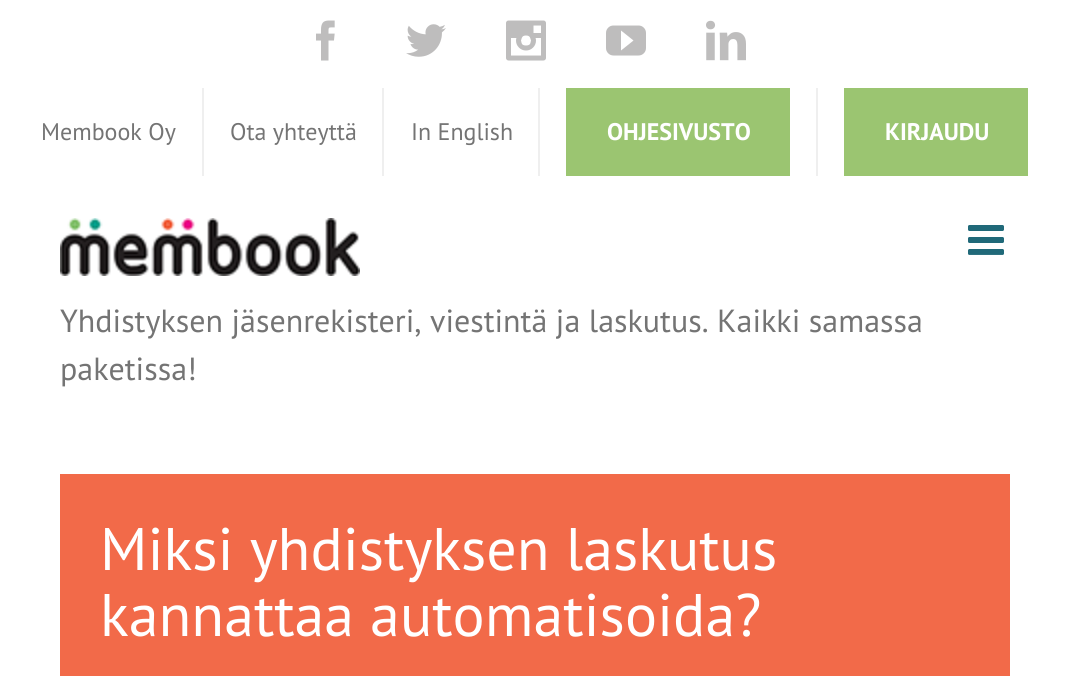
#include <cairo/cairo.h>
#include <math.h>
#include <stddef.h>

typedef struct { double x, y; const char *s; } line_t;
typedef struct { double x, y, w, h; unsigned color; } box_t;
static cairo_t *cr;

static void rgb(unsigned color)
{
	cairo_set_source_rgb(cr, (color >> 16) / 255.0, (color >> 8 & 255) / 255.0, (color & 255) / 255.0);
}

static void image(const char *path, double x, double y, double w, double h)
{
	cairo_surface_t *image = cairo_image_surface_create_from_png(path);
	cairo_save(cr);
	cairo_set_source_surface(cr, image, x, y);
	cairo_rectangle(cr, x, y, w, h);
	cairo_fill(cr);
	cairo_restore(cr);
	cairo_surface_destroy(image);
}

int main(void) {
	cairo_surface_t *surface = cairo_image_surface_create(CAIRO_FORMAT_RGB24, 1069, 676);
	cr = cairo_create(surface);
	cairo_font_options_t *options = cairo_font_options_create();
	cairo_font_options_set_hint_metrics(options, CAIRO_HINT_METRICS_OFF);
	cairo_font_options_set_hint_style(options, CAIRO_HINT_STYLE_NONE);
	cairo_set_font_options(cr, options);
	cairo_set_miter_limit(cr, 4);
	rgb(0xffffff);
	cairo_paint(cr);
	image("img/1.png", 316, 20, 19, 41);
	image("img/2.png", 406, 24, 40, 33);
	image("img/3.png", 506, 20, 40, 41);
	image("img/4.png", 606, 25, 40, 31);
	image("img/5.png", 706, 20, 40, 41);
	{
		static const box_t items[] = {
			{202, 88, 2, 88, 0xefefef},
			{382, 88, 2, 88, 0xefefef},
			{538, 88, 2, 88, 0xefefef},
			{566, 88, 224, 88, 0x9bc571},
			{816, 88, 2, 88, 0xefefef},
			{844, 88, 184, 88, 0x9bc571},
		};
		for (size_t i = 0; i < sizeof items / sizeof *items; i++) {
			rgb(items[i].color);
			cairo_rectangle(cr, items[i].x, items[i].y, items[i].w, items[i].h);
			cairo_fill(cr);
		}
	}
	image("img/6.png", 968, 225, 36, 30);
	image("img/7.png", 60, 218, 300, 58);
	rgb(0xf26a49);
	cairo_rectangle(cr, 60, 474, 950, 202);
	cairo_fill(cr);
	cairo_select_font_face(cr, "PT Sans", CAIRO_FONT_SLANT_NORMAL, CAIRO_FONT_WEIGHT_NORMAL);
	cairo_set_font_size(cr, 24);
	rgb(0x747474);
	{
		static const line_t items[] = {
			{41, 140, "Membook Oy"},
			{230, 140, "Ota yhteyttä"},
			{411, 140, "In English"},
		};
		for (size_t i = 0; i < sizeof items / sizeof *items; i++) {
			cairo_move_to(cr, items[i].x, items[i].y);
			cairo_show_text(cr, items[i].s);
		}
	}
	cairo_select_font_face(cr, "PT Sans", CAIRO_FONT_SLANT_NORMAL, CAIRO_FONT_WEIGHT_BOLD);
	rgb(0xffffff);
	cairo_move_to(cr, 607, 140);
	cairo_show_text(cr, "OHJESIVUSTO");
	cairo_move_to(cr, 885, 140);
	cairo_show_text(cr, "KIRJAUDU");
	cairo_select_font_face(cr, "PT Sans", CAIRO_FONT_SLANT_NORMAL, CAIRO_FONT_WEIGHT_NORMAL);
	cairo_set_font_size(cr, 32);
	rgb(0x747474);
	cairo_move_to(cr, 60, 332);
	cairo_show_text(cr, "Yhdistyksen jäsenrekisteri, viestintä ja laskutus. Kaikki samassa");
	cairo_move_to(cr, 60, 380);
	cairo_show_text(cr, "paketissa!");
	cairo_set_font_size(cr, 60);
	rgb(0xffffff);
	cairo_move_to(cr, 100, 570);
	cairo_show_text(cr, "Miksi yhdistyksen laskutus");
	cairo_move_to(cr, 100, 636);
	cairo_show_text(cr, "kannattaa automatisoida?");
	cairo_surface_write_to_png(surface, "page.png");
	cairo_font_options_destroy(options);
	cairo_destroy(cr);
	cairo_surface_destroy(surface);
	return 0;
}
